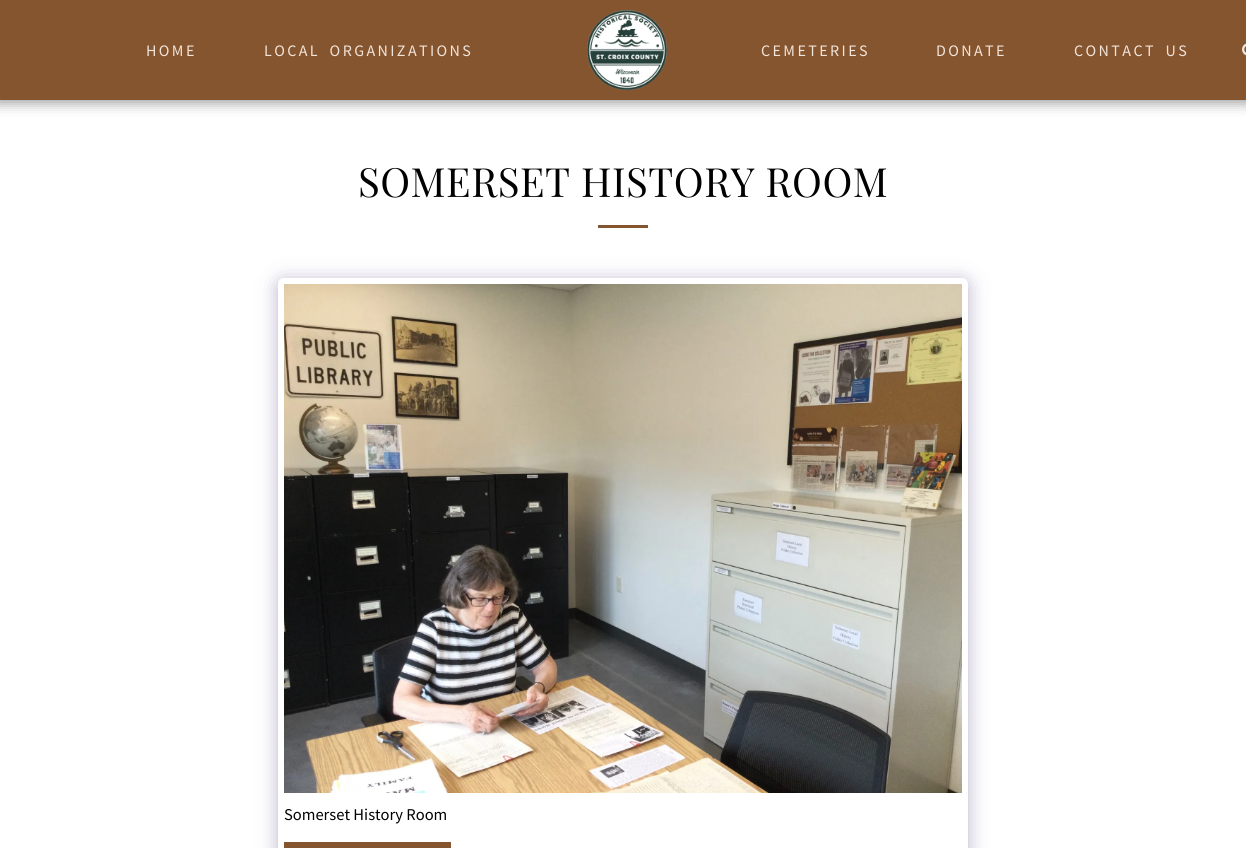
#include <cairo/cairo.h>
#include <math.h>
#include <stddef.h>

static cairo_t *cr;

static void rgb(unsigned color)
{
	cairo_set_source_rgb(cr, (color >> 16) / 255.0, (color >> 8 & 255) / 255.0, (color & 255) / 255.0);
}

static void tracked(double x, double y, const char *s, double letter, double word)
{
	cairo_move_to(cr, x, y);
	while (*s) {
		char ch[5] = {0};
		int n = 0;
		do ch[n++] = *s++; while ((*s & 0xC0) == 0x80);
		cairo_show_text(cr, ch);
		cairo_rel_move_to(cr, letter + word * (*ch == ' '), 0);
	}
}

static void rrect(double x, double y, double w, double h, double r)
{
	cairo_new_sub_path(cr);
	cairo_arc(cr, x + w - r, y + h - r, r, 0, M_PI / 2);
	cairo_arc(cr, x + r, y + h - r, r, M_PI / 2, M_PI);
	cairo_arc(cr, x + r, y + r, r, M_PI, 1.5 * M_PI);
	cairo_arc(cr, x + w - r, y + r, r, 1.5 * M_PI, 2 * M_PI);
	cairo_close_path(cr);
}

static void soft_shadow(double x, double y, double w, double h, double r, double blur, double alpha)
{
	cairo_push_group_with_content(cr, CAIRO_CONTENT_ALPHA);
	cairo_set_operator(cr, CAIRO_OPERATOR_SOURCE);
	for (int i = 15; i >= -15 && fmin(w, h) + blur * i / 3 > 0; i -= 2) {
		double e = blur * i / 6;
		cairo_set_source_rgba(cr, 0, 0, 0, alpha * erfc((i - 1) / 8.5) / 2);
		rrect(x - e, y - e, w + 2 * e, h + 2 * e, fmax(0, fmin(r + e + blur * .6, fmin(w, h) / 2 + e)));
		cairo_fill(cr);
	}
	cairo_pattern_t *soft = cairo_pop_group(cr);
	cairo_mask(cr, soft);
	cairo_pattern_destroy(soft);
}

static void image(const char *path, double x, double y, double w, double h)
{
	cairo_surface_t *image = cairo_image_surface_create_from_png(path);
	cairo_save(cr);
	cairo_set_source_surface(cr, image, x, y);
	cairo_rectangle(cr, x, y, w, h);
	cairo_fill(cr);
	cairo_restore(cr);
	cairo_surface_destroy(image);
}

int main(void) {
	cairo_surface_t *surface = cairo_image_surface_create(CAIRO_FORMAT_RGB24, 1246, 848);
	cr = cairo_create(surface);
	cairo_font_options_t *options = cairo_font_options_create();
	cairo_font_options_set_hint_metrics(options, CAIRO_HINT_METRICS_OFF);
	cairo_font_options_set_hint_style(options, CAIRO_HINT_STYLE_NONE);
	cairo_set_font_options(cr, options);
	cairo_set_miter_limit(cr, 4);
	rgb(0xffffff);
	cairo_paint(cr);
	rgb(0x000000);
	soft_shadow(-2, 0, 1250, 104, 0, 6, 0.35);
	rgb(0x85552f);
	cairo_rectangle(cr, 0, 0, 1246, 100);
	cairo_fill(cr);
	image("img/1.png", 587, 10, 80, 80);
	image("img/2.png", 1242, 43, 4, 13);
	cairo_rectangle(cr, 598, 225, 50, 3);
	cairo_fill(cr);
	rgb(0x4d3f7a);
	soft_shadow(278, 281, 690, 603, 6, 10, 0.4);
	rgb(0xffffff);
	rrect(278, 278, 690, 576, 6);
	cairo_fill(cr);
	image("img/3.png", 284, 284, 678, 509);
	rgb(0x85552f);
	cairo_rectangle(cr, 284, 842, 167, 6);
	cairo_fill(cr);
	cairo_select_font_face(cr, "Source Sans Pro", CAIRO_FONT_SLANT_NORMAL, CAIRO_FONT_WEIGHT_NORMAL);
	cairo_set_font_size(cr, 16);
	rgb(0xf2e4d9);
	tracked(146, 56, "HOME", 2.4, 0);
	tracked(264, 56, "LOCAL ORGANIZATIONS", 2.4, 4);
	tracked(761, 56, "CEMETERIES", 2.4, 0);
	tracked(936, 56, "DONATE", 2.4, 0);
	tracked(1074, 56, "CONTACT US", 2.4, 4);
	cairo_select_font_face(cr, "Playfair Display", CAIRO_FONT_SLANT_NORMAL, CAIRO_FONT_WEIGHT_NORMAL);
	cairo_set_font_size(cr, 40.25);
	rgb(0x000000);
	tracked(358, 197, "SOMERSET HISTORY ROOM", 0.5, 0);
	cairo_select_font_face(cr, "Source Sans Pro", CAIRO_FONT_SLANT_NORMAL, CAIRO_FONT_WEIGHT_NORMAL);
	cairo_set_font_size(cr, 16.5);
	cairo_move_to(cr, 284, 820);
	cairo_show_text(cr, "Somerset History Room");
	cairo_surface_write_to_png(surface, "page.png");
	cairo_font_options_destroy(options);
	cairo_destroy(cr);
	cairo_surface_destroy(surface);
	return 0;
}
